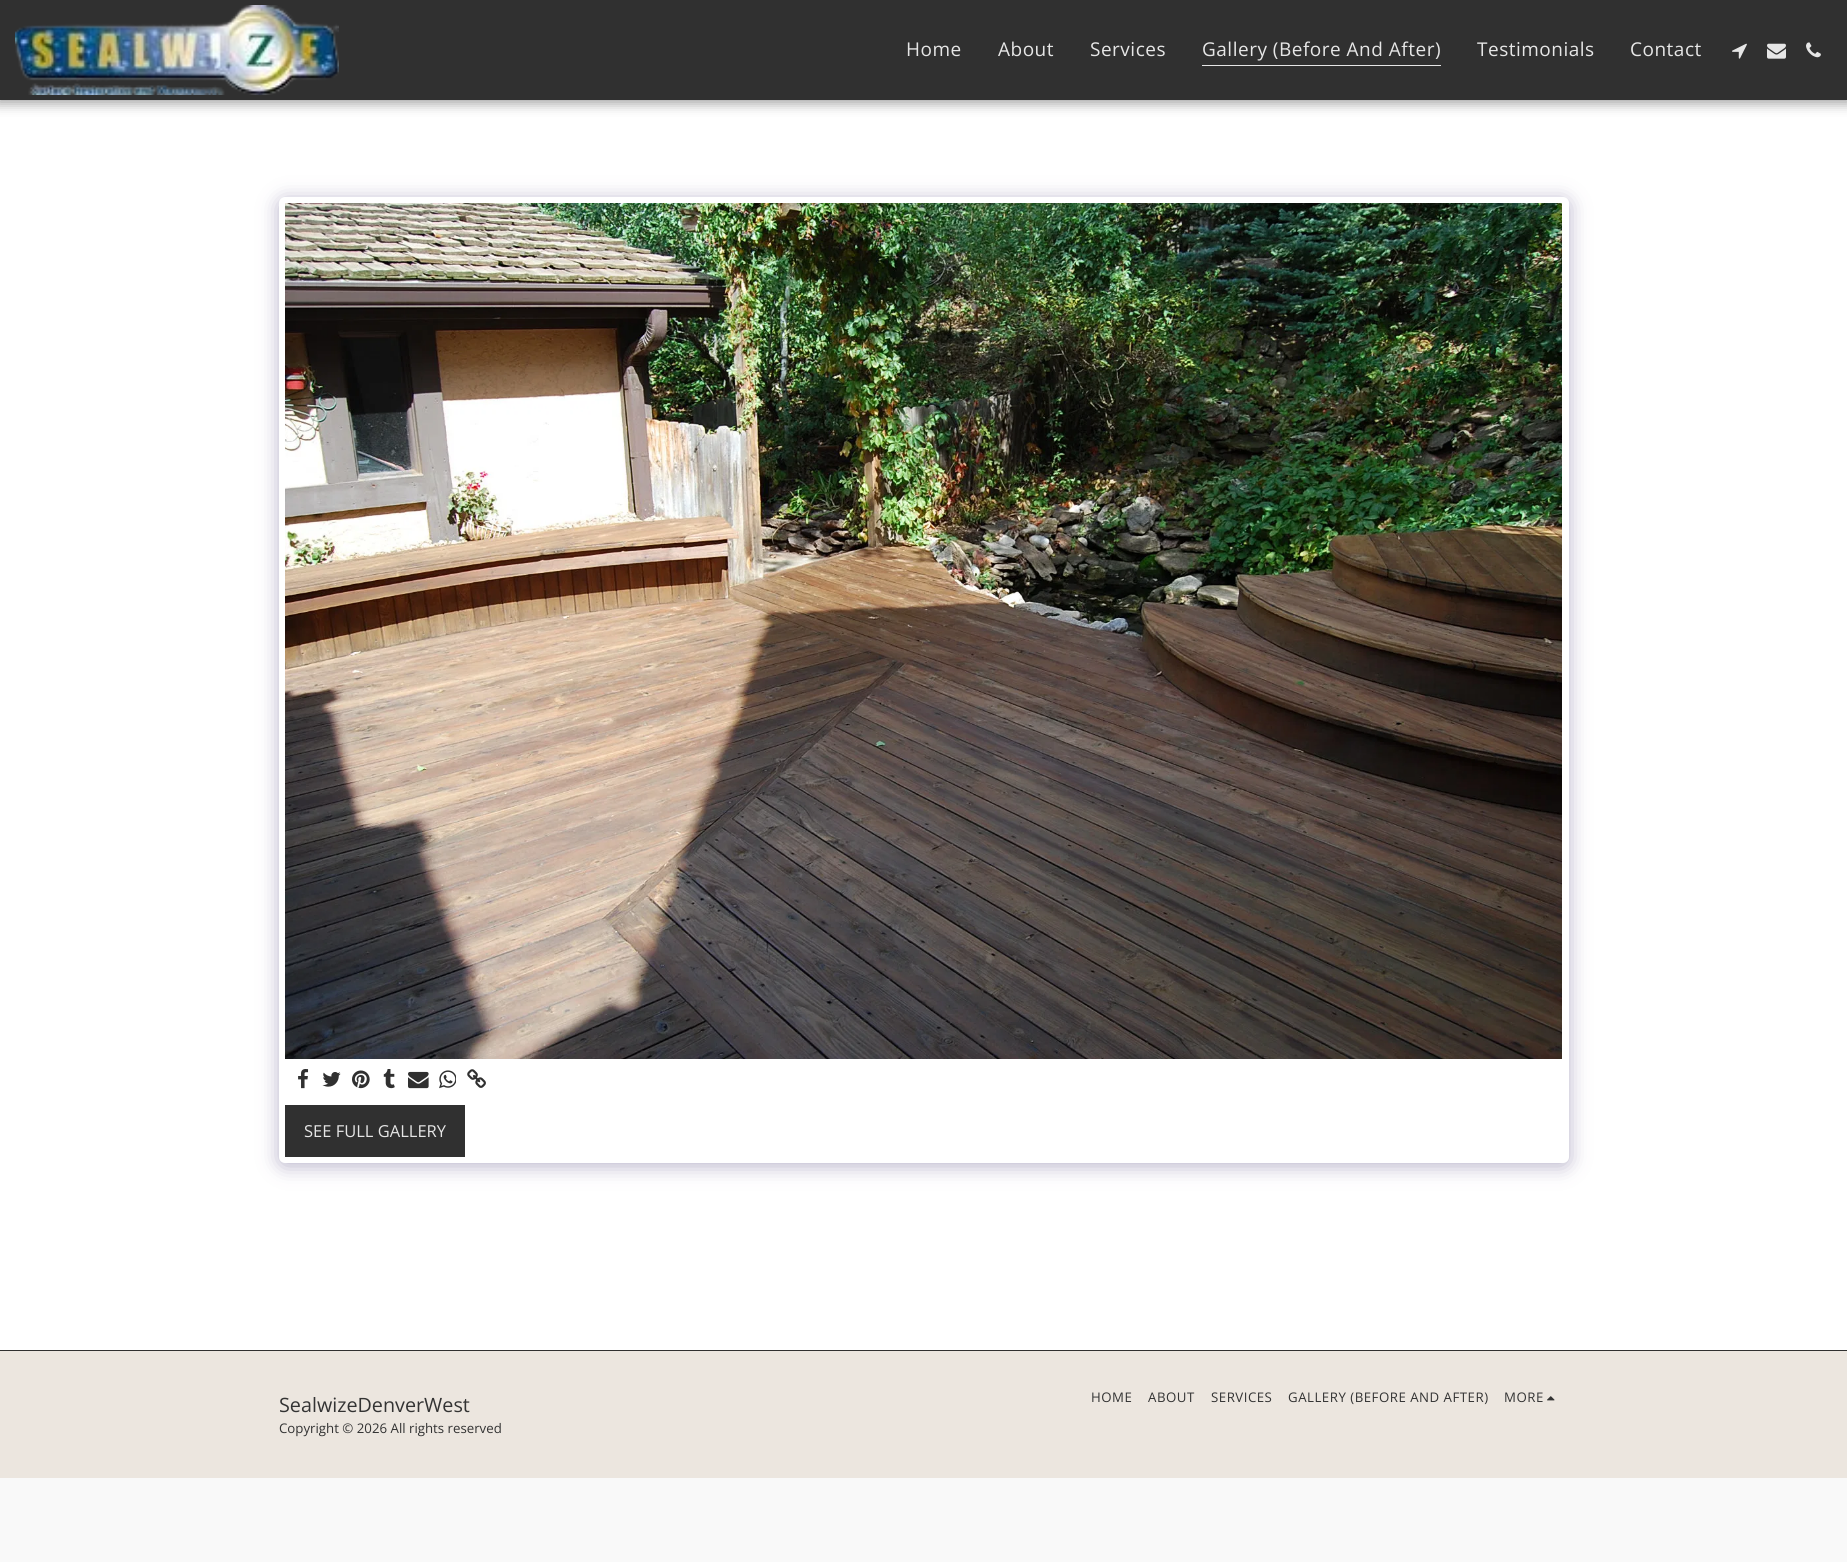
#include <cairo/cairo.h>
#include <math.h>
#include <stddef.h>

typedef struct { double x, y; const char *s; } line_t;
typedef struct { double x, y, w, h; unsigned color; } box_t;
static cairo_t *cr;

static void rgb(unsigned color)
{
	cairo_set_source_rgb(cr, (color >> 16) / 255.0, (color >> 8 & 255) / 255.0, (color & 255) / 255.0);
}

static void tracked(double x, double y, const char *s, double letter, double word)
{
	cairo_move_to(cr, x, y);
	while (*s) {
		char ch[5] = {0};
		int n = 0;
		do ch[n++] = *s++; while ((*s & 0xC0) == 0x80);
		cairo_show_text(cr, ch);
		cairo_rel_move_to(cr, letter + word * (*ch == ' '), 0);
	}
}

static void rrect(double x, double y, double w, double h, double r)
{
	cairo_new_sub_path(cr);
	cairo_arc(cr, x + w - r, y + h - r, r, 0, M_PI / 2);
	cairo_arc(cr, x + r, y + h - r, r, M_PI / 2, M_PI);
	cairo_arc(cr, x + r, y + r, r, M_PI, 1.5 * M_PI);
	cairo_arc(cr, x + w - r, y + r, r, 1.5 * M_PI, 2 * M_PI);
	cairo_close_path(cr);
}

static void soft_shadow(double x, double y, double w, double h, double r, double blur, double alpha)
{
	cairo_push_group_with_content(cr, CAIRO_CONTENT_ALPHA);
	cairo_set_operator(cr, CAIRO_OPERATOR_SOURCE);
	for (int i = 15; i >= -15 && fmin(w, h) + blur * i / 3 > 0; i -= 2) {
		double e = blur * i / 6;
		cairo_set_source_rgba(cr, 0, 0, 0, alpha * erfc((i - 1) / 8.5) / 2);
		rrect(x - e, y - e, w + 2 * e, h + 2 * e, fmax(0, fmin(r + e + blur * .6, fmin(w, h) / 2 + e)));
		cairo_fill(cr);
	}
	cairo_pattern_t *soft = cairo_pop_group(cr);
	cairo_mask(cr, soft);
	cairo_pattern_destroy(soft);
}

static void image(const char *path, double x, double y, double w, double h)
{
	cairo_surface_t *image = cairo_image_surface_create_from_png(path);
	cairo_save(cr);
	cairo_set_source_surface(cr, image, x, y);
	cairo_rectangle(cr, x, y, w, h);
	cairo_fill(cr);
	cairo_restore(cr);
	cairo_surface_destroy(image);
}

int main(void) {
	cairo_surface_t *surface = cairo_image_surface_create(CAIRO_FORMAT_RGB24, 1847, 1562);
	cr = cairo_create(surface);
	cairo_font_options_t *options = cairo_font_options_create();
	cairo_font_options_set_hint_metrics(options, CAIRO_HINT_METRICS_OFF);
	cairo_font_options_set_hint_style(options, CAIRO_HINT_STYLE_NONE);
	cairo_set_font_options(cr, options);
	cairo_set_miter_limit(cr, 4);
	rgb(0xf9f9f9);
	cairo_paint(cr);
	rgb(0xffffff);
	cairo_rectangle(cr, 0, 100, 1847, 1250);
	cairo_fill(cr);
	rgb(0x000000);
	soft_shadow(-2, 0, 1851, 104, 0, 6, 0.35);
	rgb(0x303030);
	cairo_rectangle(cr, 0, 0, 1847, 100);
	cairo_fill(cr);
	image("img/1.png", 15, 5, 324, 90);
	rgb(0xe6e6e6);
	cairo_rectangle(cr, 1202, 65, 239, 1);
	cairo_fill(cr);
	image("img/2.png", 1732, 43, 15, 16);
	image("img/3.png", 1767, 43, 19, 16);
	image("img/4.png", 1806, 42, 15, 16);
	rgb(0x4d3f7a);
	soft_shadow(279, 200, 1290, 966, 6, 10, 0.4);
	rgb(0xffffff);
	rrect(279, 197, 1290, 966, 6);
	cairo_fill(cr);
	image("img/5.png", 285, 203, 1277, 856);
	image("img/6.png", 298, 1069, 11, 20);
	image("img/7.png", 322, 1072, 19, 15);
	image("img/8.png", 352, 1070, 18, 19);
	image("img/9.png", 383, 1069, 12, 20);
	image("img/10.png", 408, 1071, 21, 18);
	image("img/11.png", 439, 1070, 17, 19);
	image("img/12.png", 467, 1069, 19, 19);
	{
		static const box_t items[] = {
			{285, 1105, 180, 52, 0x303030},
			{0, 1351, 1847, 127, 0xece6df},
			{0, 1350, 1847, 1, 0x303030},
		};
		for (size_t i = 0; i < sizeof items / sizeof *items; i++) {
			rgb(items[i].color);
			cairo_rectangle(cr, items[i].x, items[i].y, items[i].w, items[i].h);
			cairo_fill(cr);
		}
	}
	image("img/13.png", 1547, 1396, 8, 5);
	cairo_select_font_face(cr, "Open Sans", CAIRO_FONT_SLANT_NORMAL, CAIRO_FONT_WEIGHT_NORMAL);
	cairo_set_font_size(cr, 19);
	rgb(0xe6e6e6);
	{
		static const line_t items[] = {
			{906, 56, "Home"},
			{998, 56, "About"},
			{1090, 56, "Services"},
			{1202, 56, "Gallery (Before And After)"},
			{1477, 56, "Testimonials"},
			{1630, 56, "Contact"},
		};
		for (size_t i = 0; i < sizeof items / sizeof *items; i++) {
			tracked(items[i].x, items[i].y, items[i].s, 0.5, 0);
		}
	}
	cairo_set_font_size(cr, 16.5);
	cairo_move_to(cr, 304, 1137);
	cairo_show_text(cr, "SEE FULL GALLERY");
	cairo_set_font_size(cr, 19.75);
	rgb(0x333333);
	cairo_move_to(cr, 279, 1412);
	cairo_show_text(cr, "SealwizeDenverWest");
	cairo_set_font_size(cr, 13.25);
	cairo_move_to(cr, 279, 1433);
	cairo_show_text(cr, "Copyright © 2026 All rights reserved");
	{
		static const line_t items[] = {
			{1091, 1402, "HOME"},
			{1148, 1402, "ABOUT"},
			{1211, 1402, "SERVICES"},
			{1288, 1402, "GALLERY (BEFORE AND AFTER)"},
			{1504, 1402, "MORE"},
		};
		for (size_t i = 0; i < sizeof items / sizeof *items; i++) {
			tracked(items[i].x, items[i].y, items[i].s, 0.5, 0);
		}
	}
	cairo_surface_write_to_png(surface, "page.png");
	cairo_font_options_destroy(options);
	cairo_destroy(cr);
	cairo_surface_destroy(surface);
	return 0;
}
